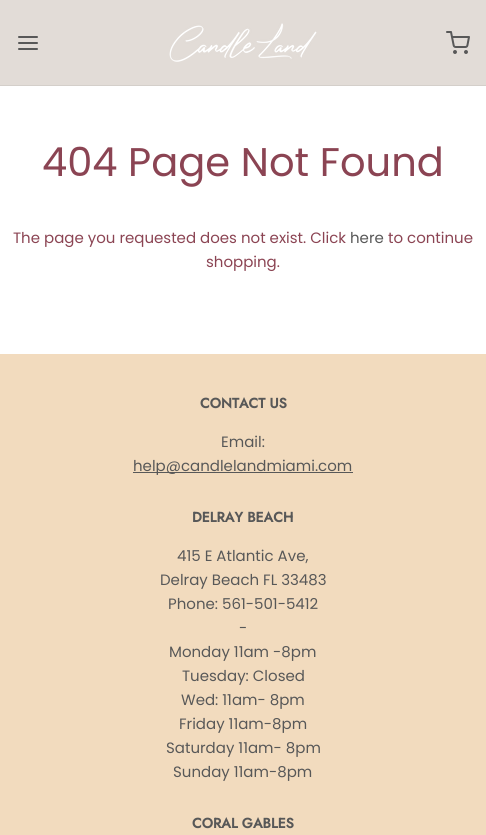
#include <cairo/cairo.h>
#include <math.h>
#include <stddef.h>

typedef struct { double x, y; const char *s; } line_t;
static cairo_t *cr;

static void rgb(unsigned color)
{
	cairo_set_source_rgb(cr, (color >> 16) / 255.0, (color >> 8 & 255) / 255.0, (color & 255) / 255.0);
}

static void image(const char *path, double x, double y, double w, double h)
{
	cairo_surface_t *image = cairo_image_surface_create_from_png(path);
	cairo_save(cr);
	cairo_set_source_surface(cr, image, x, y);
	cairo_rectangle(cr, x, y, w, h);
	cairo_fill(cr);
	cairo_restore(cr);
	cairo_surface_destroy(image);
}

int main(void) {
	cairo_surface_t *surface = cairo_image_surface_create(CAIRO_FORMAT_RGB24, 486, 835);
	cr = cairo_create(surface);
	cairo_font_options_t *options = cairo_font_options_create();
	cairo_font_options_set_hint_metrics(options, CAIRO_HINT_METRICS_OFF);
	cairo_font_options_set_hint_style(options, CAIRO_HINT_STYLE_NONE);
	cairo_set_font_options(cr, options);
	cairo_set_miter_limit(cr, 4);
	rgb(0xffffff);
	cairo_paint(cr);
	rgb(0xe2dcd7);
	cairo_rectangle(cr, 0, 0, 486, 85);
	cairo_fill(cr);
	rgb(0xd4cfca);
	cairo_rectangle(cr, 0, 85, 486, 1);
	cairo_fill(cr);
	cairo_new_path(cr);
	cairo_move_to(cr, 19, 43);
	cairo_line_to(cr, 37, 43);
	cairo_move_to(cr, 19, 37);
	cairo_line_to(cr, 37, 37);
	cairo_move_to(cr, 19, 49);
	cairo_line_to(cr, 37, 49);
	rgb(0x585858);
	cairo_set_line_cap(cr, CAIRO_LINE_CAP_ROUND);
	cairo_set_line_join(cr, CAIRO_LINE_JOIN_ROUND);
	cairo_stroke(cr);
	image("img/1.png", 169, 23, 148, 39);
	image("img/2.png", 446, 31, 24, 23);
	rgb(0xf2dbbe);
	cairo_rectangle(cr, 0, 354, 486, 481);
	cairo_fill(cr);
	rgb(0x585858);
	cairo_rectangle(cr, 133, 472, 220, 1);
	cairo_fill(cr);
	cairo_select_font_face(cr, "Poppins", CAIRO_FONT_SLANT_NORMAL, CAIRO_FONT_WEIGHT_NORMAL);
	cairo_set_font_size(cr, 40);
	rgb(0x8b4453);
	cairo_move_to(cr, 42, 176);
	cairo_show_text(cr, "404 Page Not Found");
	cairo_set_font_size(cr, 15);
	cairo_move_to(cr, 13, 243);
	cairo_show_text(cr, "The page you requested does not exist. Click");
	rgb(0x585858);
	cairo_move_to(cr, 350, 243);
	cairo_show_text(cr, "here");
	rgb(0x8b4453);
	cairo_move_to(cr, 388, 243);
	cairo_show_text(cr, "to continue");
	cairo_move_to(cr, 206, 267);
	cairo_show_text(cr, "shopping.");
	cairo_select_font_face(cr, "Jost", CAIRO_FONT_SLANT_NORMAL, CAIRO_FONT_WEIGHT_BOLD);
	cairo_set_font_size(cr, 14);
	rgb(0x585858);
	cairo_move_to(cr, 200, 408);
	cairo_show_text(cr, "CONTACT US");
	cairo_select_font_face(cr, "Poppins", CAIRO_FONT_SLANT_NORMAL, CAIRO_FONT_WEIGHT_NORMAL);
	cairo_set_font_size(cr, 15);
	cairo_move_to(cr, 221, 447);
	cairo_show_text(cr, "Email:");
	cairo_move_to(cr, 133, 471);
	cairo_show_text(cr, "help@candlelandmiami.com");
	cairo_select_font_face(cr, "Jost", CAIRO_FONT_SLANT_NORMAL, CAIRO_FONT_WEIGHT_BOLD);
	cairo_set_font_size(cr, 14);
	cairo_move_to(cr, 192, 522);
	cairo_show_text(cr, "DELRAY BEACH");
	cairo_select_font_face(cr, "Poppins", CAIRO_FONT_SLANT_NORMAL, CAIRO_FONT_WEIGHT_NORMAL);
	cairo_set_font_size(cr, 15);
	{
		static const line_t items[] = {
			{177, 561, "415 E Atlantic Ave,"},
			{160, 585, "Delray Beach FL 33483"},
			{168, 609, "Phone: 561-501-5412"},
			{239, 633, "-"},
			{169, 657, "Monday 11am -8pm"},
			{182, 681, "Tuesday: Closed"},
			{181, 705, "Wed: 11am- 8pm"},
			{179, 729, "Friday 11am-8pm"},
			{166, 753, "Saturday 11am- 8pm"},
			{173, 777, "Sunday 11am-8pm"},
		};
		for (size_t i = 0; i < sizeof items / sizeof *items; i++) {
			cairo_move_to(cr, items[i].x, items[i].y);
			cairo_show_text(cr, items[i].s);
		}
	}
	cairo_select_font_face(cr, "Jost", CAIRO_FONT_SLANT_NORMAL, CAIRO_FONT_WEIGHT_BOLD);
	cairo_set_font_size(cr, 14);
	cairo_move_to(cr, 192, 828);
	cairo_show_text(cr, "CORAL GABLES");
	cairo_surface_write_to_png(surface, "page.png");
	cairo_font_options_destroy(options);
	cairo_destroy(cr);
	cairo_surface_destroy(surface);
	return 0;
}
